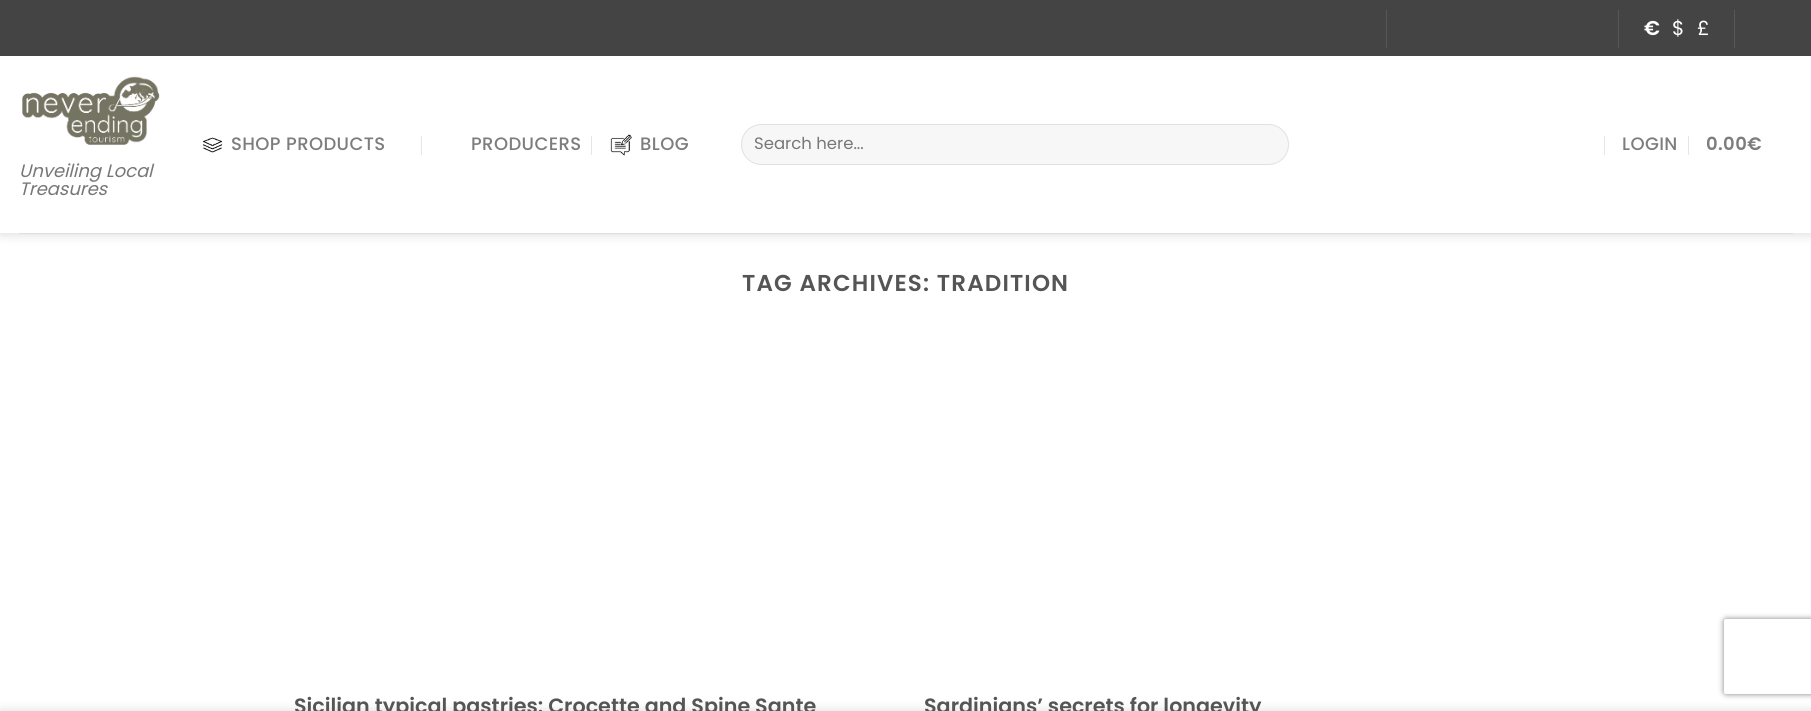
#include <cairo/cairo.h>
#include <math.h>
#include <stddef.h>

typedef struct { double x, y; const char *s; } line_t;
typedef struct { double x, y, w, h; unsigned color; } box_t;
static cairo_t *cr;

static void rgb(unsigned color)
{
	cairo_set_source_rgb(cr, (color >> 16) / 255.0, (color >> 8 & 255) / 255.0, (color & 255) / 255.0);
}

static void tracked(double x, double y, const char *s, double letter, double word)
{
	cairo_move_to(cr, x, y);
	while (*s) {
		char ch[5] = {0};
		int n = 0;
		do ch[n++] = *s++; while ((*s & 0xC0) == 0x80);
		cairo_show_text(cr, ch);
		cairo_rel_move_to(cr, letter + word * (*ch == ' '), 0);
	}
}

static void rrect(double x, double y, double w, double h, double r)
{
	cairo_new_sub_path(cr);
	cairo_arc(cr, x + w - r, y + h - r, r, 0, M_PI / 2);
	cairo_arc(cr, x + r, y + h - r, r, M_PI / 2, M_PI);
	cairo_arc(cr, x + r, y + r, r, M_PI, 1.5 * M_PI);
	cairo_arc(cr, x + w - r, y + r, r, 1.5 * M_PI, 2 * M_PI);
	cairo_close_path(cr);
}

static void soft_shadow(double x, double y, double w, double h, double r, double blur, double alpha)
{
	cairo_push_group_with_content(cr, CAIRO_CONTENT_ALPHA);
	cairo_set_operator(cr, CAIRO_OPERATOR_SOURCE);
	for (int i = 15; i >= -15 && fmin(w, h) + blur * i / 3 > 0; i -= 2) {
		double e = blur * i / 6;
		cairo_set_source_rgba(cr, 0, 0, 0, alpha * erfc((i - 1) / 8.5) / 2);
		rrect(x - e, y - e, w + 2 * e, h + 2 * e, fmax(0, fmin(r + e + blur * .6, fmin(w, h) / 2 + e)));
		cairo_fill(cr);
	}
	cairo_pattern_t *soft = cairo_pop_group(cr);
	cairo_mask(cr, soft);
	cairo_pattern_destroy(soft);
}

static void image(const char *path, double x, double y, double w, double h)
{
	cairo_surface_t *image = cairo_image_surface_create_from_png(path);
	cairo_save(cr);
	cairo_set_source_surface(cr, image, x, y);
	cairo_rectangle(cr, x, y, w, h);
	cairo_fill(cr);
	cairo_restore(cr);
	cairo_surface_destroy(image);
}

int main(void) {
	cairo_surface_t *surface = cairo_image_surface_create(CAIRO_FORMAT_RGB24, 1811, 711);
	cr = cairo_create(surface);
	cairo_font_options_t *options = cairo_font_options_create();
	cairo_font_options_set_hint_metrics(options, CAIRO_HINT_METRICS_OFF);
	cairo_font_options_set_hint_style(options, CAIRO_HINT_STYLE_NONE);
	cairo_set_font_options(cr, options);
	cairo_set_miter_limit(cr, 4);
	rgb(0xffffff);
	cairo_paint(cr);
	rgb(0x000000);
	soft_shadow(1, 1, 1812, 233, 0, 6, 0.15);
	{
		static const box_t items[] = {
			{0, 0, 1811, 56, 0x444444},
			{1386, 10, 1, 38, 0x575757},
			{1618, 10, 1, 38, 0x575757},
			{1734, 10, 1, 38, 0x575757},
			{0, 56, 1811, 177, 0xffffff},
		};
		for (size_t i = 0; i < sizeof items / sizeof *items; i++) {
			rgb(items[i].color);
			cairo_rectangle(cr, items[i].x, items[i].y, items[i].w, items[i].h);
			cairo_fill(cr);
		}
	}
	image("img/1.png", 202, 137, 21, 16);
	rgb(0xe6e6e6);
	cairo_rectangle(cr, 421, 136, 1, 19);
	cairo_fill(cr);
	cairo_rectangle(cr, 591, 136, 1, 19);
	cairo_fill(cr);
	image("img/2.png", 610, 134, 22, 22);
	rgb(0xf7f7f7);
	rrect(741, 124, 548, 41, 20.5);
	cairo_fill(cr);
	rrect(741.5, 124.5, 547, 40, 20);
	cairo_set_source_rgba(cr, 0, 0, 0, 0.09);
	cairo_set_line_width(cr, 1);
	cairo_stroke(cr);
	rgb(0xe6e6e6);
	cairo_rectangle(cr, 1604, 136, 1, 19);
	cairo_fill(cr);
	cairo_rectangle(cr, 1688, 136, 1, 19);
	cairo_fill(cr);
	image("img/3.png", 22, 76, 138, 69);
	rgb(0xdfdfdf);
	cairo_rectangle(cr, 19, 233, 1774, 1);
	cairo_fill(cr);
	cairo_save(cr);
	cairo_set_fill_rule(cr, CAIRO_FILL_RULE_EVEN_ODD);
	cairo_new_path(cr);
	cairo_move_to(cr, 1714, 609);
	cairo_line_to(cr, 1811, 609);
	cairo_line_to(cr, 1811, 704);
	cairo_line_to(cr, 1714, 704);
	cairo_close_path(cr);
	cairo_move_to(cr, 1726.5, 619);
	cairo_line_to(cr, 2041.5, 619);
	cairo_curve_to(cr, 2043, 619, 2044, 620, 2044, 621.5);
	cairo_line_to(cr, 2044, 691.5);
	cairo_curve_to(cr, 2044, 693, 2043, 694, 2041.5, 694);
	cairo_line_to(cr, 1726.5, 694);
	cairo_curve_to(cr, 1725, 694, 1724, 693, 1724, 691.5);
	cairo_line_to(cr, 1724, 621.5);
	cairo_curve_to(cr, 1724, 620, 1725, 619, 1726.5, 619);
	cairo_close_path(cr);
	cairo_clip(cr);
	rgb(0x808080);
	soft_shadow(1724, 619, 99, 75, 2.5, 3, 1);
	cairo_restore(cr);
	rgb(0x000000);
	soft_shadow(0, 711, 1811, 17, 0, 5.5, 0.14);
	cairo_select_font_face(cr, "Poppins SemiBold", CAIRO_FONT_SLANT_NORMAL, CAIRO_FONT_WEIGHT_NORMAL);
	cairo_set_font_size(cr, 20);
	rgb(0xffffff);
	cairo_move_to(cr, 1644, 35);
	cairo_show_text(cr, "€");
	cairo_select_font_face(cr, "Poppins", CAIRO_FONT_SLANT_NORMAL, CAIRO_FONT_WEIGHT_NORMAL);
	cairo_move_to(cr, 1672, 35);
	cairo_show_text(cr, "$");
	cairo_move_to(cr, 1697, 35);
	cairo_show_text(cr, "£");
	cairo_select_font_face(cr, "Poppins Medium", CAIRO_FONT_SLANT_NORMAL, CAIRO_FONT_WEIGHT_NORMAL);
	cairo_set_font_size(cr, 18);
	rgb(0x7d7d7d);
	{
		static const line_t items[] = {
			{231, 150, "SHOP PRODUCTS"},
			{471, 150, "PRODUCERS"},
			{640, 150, "BLOG"},
		};
		for (size_t i = 0; i < sizeof items / sizeof *items; i++) {
			tracked(items[i].x, items[i].y, items[i].s, 0.4, 0);
		}
	}
	cairo_select_font_face(cr, "Poppins", CAIRO_FONT_SLANT_NORMAL, CAIRO_FONT_WEIGHT_NORMAL);
	cairo_set_font_size(cr, 16.5);
	rgb(0x777777);
	cairo_move_to(cr, 754, 149);
	cairo_show_text(cr, "Search here...");
	cairo_select_font_face(cr, "Poppins Medium", CAIRO_FONT_SLANT_NORMAL, CAIRO_FONT_WEIGHT_NORMAL);
	cairo_set_font_size(cr, 18);
	rgb(0x7d7d7d);
	tracked(1622, 150, "LOGIN", 0.4, 0);
	cairo_select_font_face(cr, "Poppins SemiBold", CAIRO_FONT_SLANT_NORMAL, CAIRO_FONT_WEIGHT_NORMAL);
	tracked(1706, 150, "0.00€", 0.4, 0);
	cairo_select_font_face(cr, "Poppins", CAIRO_FONT_SLANT_ITALIC, CAIRO_FONT_WEIGHT_NORMAL);
	rgb(0x777777);
	cairo_move_to(cr, 19, 177);
	cairo_show_text(cr, "Unveiling Local");
	cairo_move_to(cr, 19, 195);
	cairo_show_text(cr, "Treasures");
	cairo_select_font_face(cr, "Poppins SemiBold", CAIRO_FONT_SLANT_NORMAL, CAIRO_FONT_WEIGHT_NORMAL);
	cairo_set_font_size(cr, 23);
	rgb(0x555555);
	tracked(742, 291, "TAG ARCHIVES: TRADITION", 1.15, 0);
	cairo_set_font_size(cr, 20.7);
	cairo_move_to(cr, 294, 713);
	cairo_show_text(cr, "Sicilian typical pastries: Crocette and Spine Sante");
	cairo_move_to(cr, 924, 713);
	cairo_show_text(cr, "Sardinians’ secrets for longevity");
	cairo_surface_write_to_png(surface, "page.png");
	cairo_font_options_destroy(options);
	cairo_destroy(cr);
	cairo_surface_destroy(surface);
	return 0;
}
